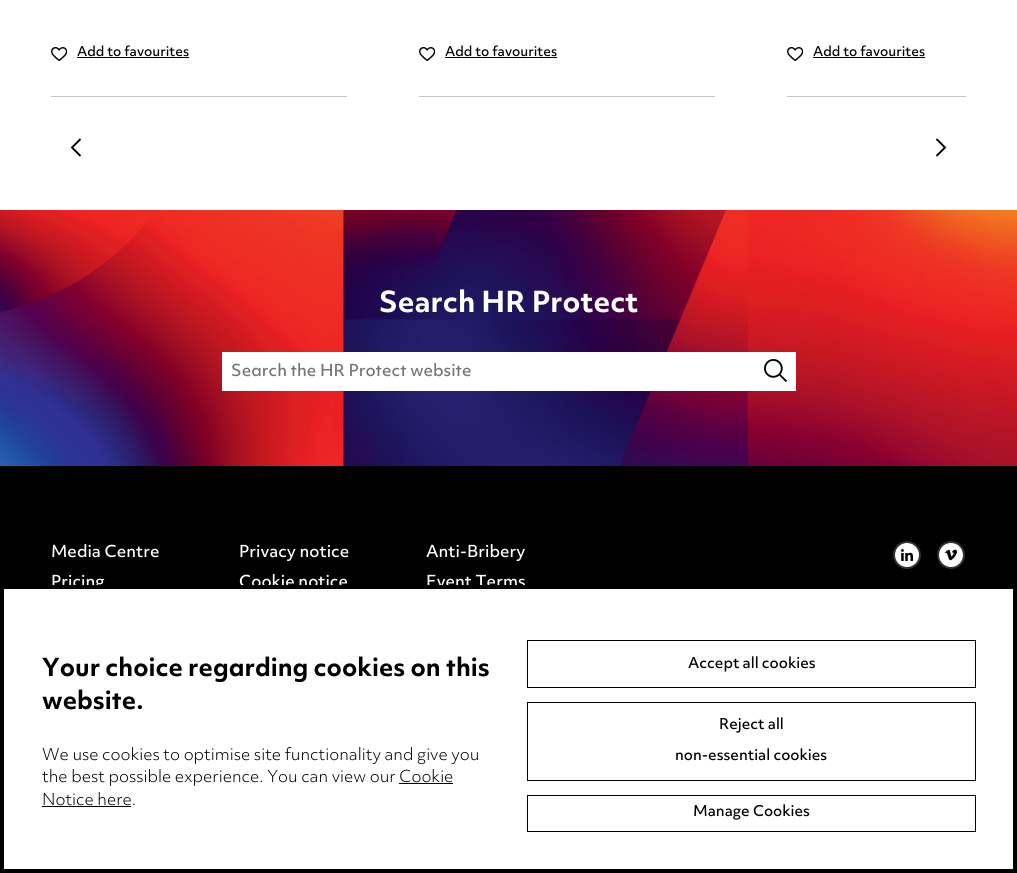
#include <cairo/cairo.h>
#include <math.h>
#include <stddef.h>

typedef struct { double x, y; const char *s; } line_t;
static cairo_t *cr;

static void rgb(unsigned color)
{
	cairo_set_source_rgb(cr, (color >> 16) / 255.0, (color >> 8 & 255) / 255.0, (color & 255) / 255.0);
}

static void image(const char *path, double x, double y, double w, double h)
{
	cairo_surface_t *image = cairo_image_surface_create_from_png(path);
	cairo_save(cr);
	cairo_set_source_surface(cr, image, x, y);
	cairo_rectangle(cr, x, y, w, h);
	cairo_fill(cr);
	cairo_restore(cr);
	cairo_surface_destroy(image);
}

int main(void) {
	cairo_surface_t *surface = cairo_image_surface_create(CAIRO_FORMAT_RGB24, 1017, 873);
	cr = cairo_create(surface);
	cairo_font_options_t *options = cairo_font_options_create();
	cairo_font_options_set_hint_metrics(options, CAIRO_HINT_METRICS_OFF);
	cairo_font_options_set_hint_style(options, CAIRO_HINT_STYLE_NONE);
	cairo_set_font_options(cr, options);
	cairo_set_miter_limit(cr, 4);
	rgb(0xffffff);
	cairo_paint(cr);
	rgb(0xc4c4c4);
	cairo_rectangle(cr, 51, 96, 296, 1);
	cairo_fill(cr);
	image("img/1.png", 51, 47, 16, 14);
	rgb(0x000000);
	cairo_rectangle(cr, 77, 57, 112, 1);
	cairo_fill(cr);
	rgb(0xc4c4c4);
	cairo_rectangle(cr, 419, 96, 296, 1);
	cairo_fill(cr);
	image("img/1.png", 419, 47, 16, 14);
	rgb(0x000000);
	cairo_rectangle(cr, 445, 57, 112, 1);
	cairo_fill(cr);
	rgb(0xc4c4c4);
	cairo_rectangle(cr, 787, 96, 179, 1);
	cairo_fill(cr);
	image("img/1.png", 787, 47, 16, 14);
	rgb(0x000000);
	cairo_rectangle(cr, 813, 57, 112, 1);
	cairo_fill(cr);
	cairo_new_path(cr);
	cairo_move_to(cr, 80.5, 139);
	cairo_line_to(cr, 71.5, 148);
	cairo_move_to(cr, 80.5, 156);
	cairo_line_to(cr, 71.5, 147);
	cairo_set_line_width(cr, 1.9);
	cairo_stroke(cr);
	cairo_new_path(cr);
	cairo_move_to(cr, 936.5, 156);
	cairo_line_to(cr, 945.5, 147);
	cairo_move_to(cr, 936.5, 139);
	cairo_line_to(cr, 945.5, 148);
	cairo_stroke(cr);
	image("img/2.png", 0, 210, 1017, 256);
	rgb(0xffffff);
	cairo_rectangle(cr, 222, 352, 574, 39);
	cairo_fill(cr);
	image("img/3.png", 764, 359, 24, 24);
	rgb(0x000000);
	cairo_rectangle(cr, 0, 466, 1017, 119);
	cairo_fill(cr);
	rgb(0xffffff);
	cairo_arc(cr, 907, 555, 13, 0, 2 * M_PI);
	cairo_fill_preserve(cr);
	rgb(0x323232);
	cairo_set_line_width(cr, 2);
	cairo_stroke(cr);
	image("img/4.png", 901, 549, 12, 12);
	rgb(0xffffff);
	cairo_arc(cr, 951, 555, 13, 0, 2 * M_PI);
	cairo_fill_preserve(cr);
	rgb(0x323232);
	cairo_stroke(cr);
	image("img/5.png", 945, 549, 12, 12);
	cairo_select_font_face(cr, "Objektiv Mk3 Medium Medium", CAIRO_FONT_SLANT_NORMAL, CAIRO_FONT_WEIGHT_NORMAL);
	cairo_set_font_size(cr, 13);
	rgb(0x000000);
	{
		static const line_t items[] = {
			{77, 56, "Add to favourites"},
			{445, 56, "Add to favourites"},
			{813, 56, "Add to favourites"},
		};
		for (size_t i = 0; i < sizeof items / sizeof *items; i++) {
			cairo_move_to(cr, items[i].x, items[i].y);
			cairo_show_text(cr, items[i].s);
		}
	}
	cairo_select_font_face(cr, "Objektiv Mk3", CAIRO_FONT_SLANT_NORMAL, CAIRO_FONT_WEIGHT_BOLD);
	cairo_set_font_size(cr, 28);
	rgb(0xffffff);
	cairo_move_to(cr, 379, 312);
	cairo_show_text(cr, "Search HR Protect");
	cairo_select_font_face(cr, "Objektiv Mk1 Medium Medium", CAIRO_FONT_SLANT_NORMAL, CAIRO_FONT_WEIGHT_NORMAL);
	cairo_set_font_size(cr, 16);
	rgb(0x757575);
	cairo_move_to(cr, 231, 376);
	cairo_show_text(cr, "Search the HR Protect website");
	cairo_select_font_face(cr, "Objektiv Mk3 Medium Medium", CAIRO_FONT_SLANT_NORMAL, CAIRO_FONT_WEIGHT_NORMAL);
	rgb(0xffffff);
	{
		static const line_t items[] = {
			{51, 557, "Media Centre"},
			{51, 587, "Pricing"},
			{239, 557, "Privacy notice"},
			{239, 587, "Cookie notice"},
			{426, 557, "Anti-Bribery"},
			{426, 587, "Event Terms"},
		};
		for (size_t i = 0; i < sizeof items / sizeof *items; i++) {
			cairo_move_to(cr, items[i].x, items[i].y);
			cairo_show_text(cr, items[i].s);
		}
	}
	cairo_rectangle(cr, 2, 587, 1013, 284);
	rgb(0x000000);
	cairo_set_line_width(cr, 4);
	cairo_stroke(cr);
	cairo_select_font_face(cr, "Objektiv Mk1", CAIRO_FONT_SLANT_NORMAL, CAIRO_FONT_WEIGHT_BOLD);
	cairo_set_font_size(cr, 24);
	cairo_move_to(cr, 42, 676);
	cairo_show_text(cr, "Your choice regarding cookies on this");
	cairo_move_to(cr, 42, 709);
	cairo_show_text(cr, "website.");
	cairo_select_font_face(cr, "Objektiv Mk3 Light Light", CAIRO_FONT_SLANT_NORMAL, CAIRO_FONT_WEIGHT_NORMAL);
	cairo_set_font_size(cr, 16);
	{
		static const line_t items[] = {
			{42, 760, "We use cookies to optimise site functionality and give you"},
			{42, 782, "the best possible experience. You can view our Cookie"},
			{42, 805, "Notice here."},
		};
		for (size_t i = 0; i < sizeof items / sizeof *items; i++) {
			cairo_move_to(cr, items[i].x, items[i].y);
			cairo_show_text(cr, items[i].s);
		}
	}
	cairo_rectangle(cr, 399, 783, 54, 1);
	cairo_fill(cr);
	cairo_rectangle(cr, 42, 806, 89, 1);
	cairo_fill(cr);
	cairo_rectangle(cr, 527.5, 640.5, 448, 47);
	cairo_set_line_width(cr, 1);
	cairo_stroke(cr);
	cairo_select_font_face(cr, "Objektiv Mk3 Medium Medium", CAIRO_FONT_SLANT_NORMAL, CAIRO_FONT_WEIGHT_NORMAL);
	cairo_set_font_size(cr, 14.4);
	cairo_move_to(cr, 688, 668);
	cairo_show_text(cr, "Accept all cookies");
	cairo_rectangle(cr, 527.5, 702.5, 448, 78);
	cairo_stroke(cr);
	cairo_move_to(cr, 719, 729);
	cairo_show_text(cr, "Reject all");
	cairo_move_to(cr, 675, 760);
	cairo_show_text(cr, "non-essential cookies");
	cairo_rectangle(cr, 527.5, 795.5, 448, 36);
	cairo_stroke(cr);
	cairo_move_to(cr, 693, 816);
	cairo_show_text(cr, "Manage Cookies");
	cairo_surface_write_to_png(surface, "page.png");
	cairo_font_options_destroy(options);
	cairo_destroy(cr);
	cairo_surface_destroy(surface);
	return 0;
}
